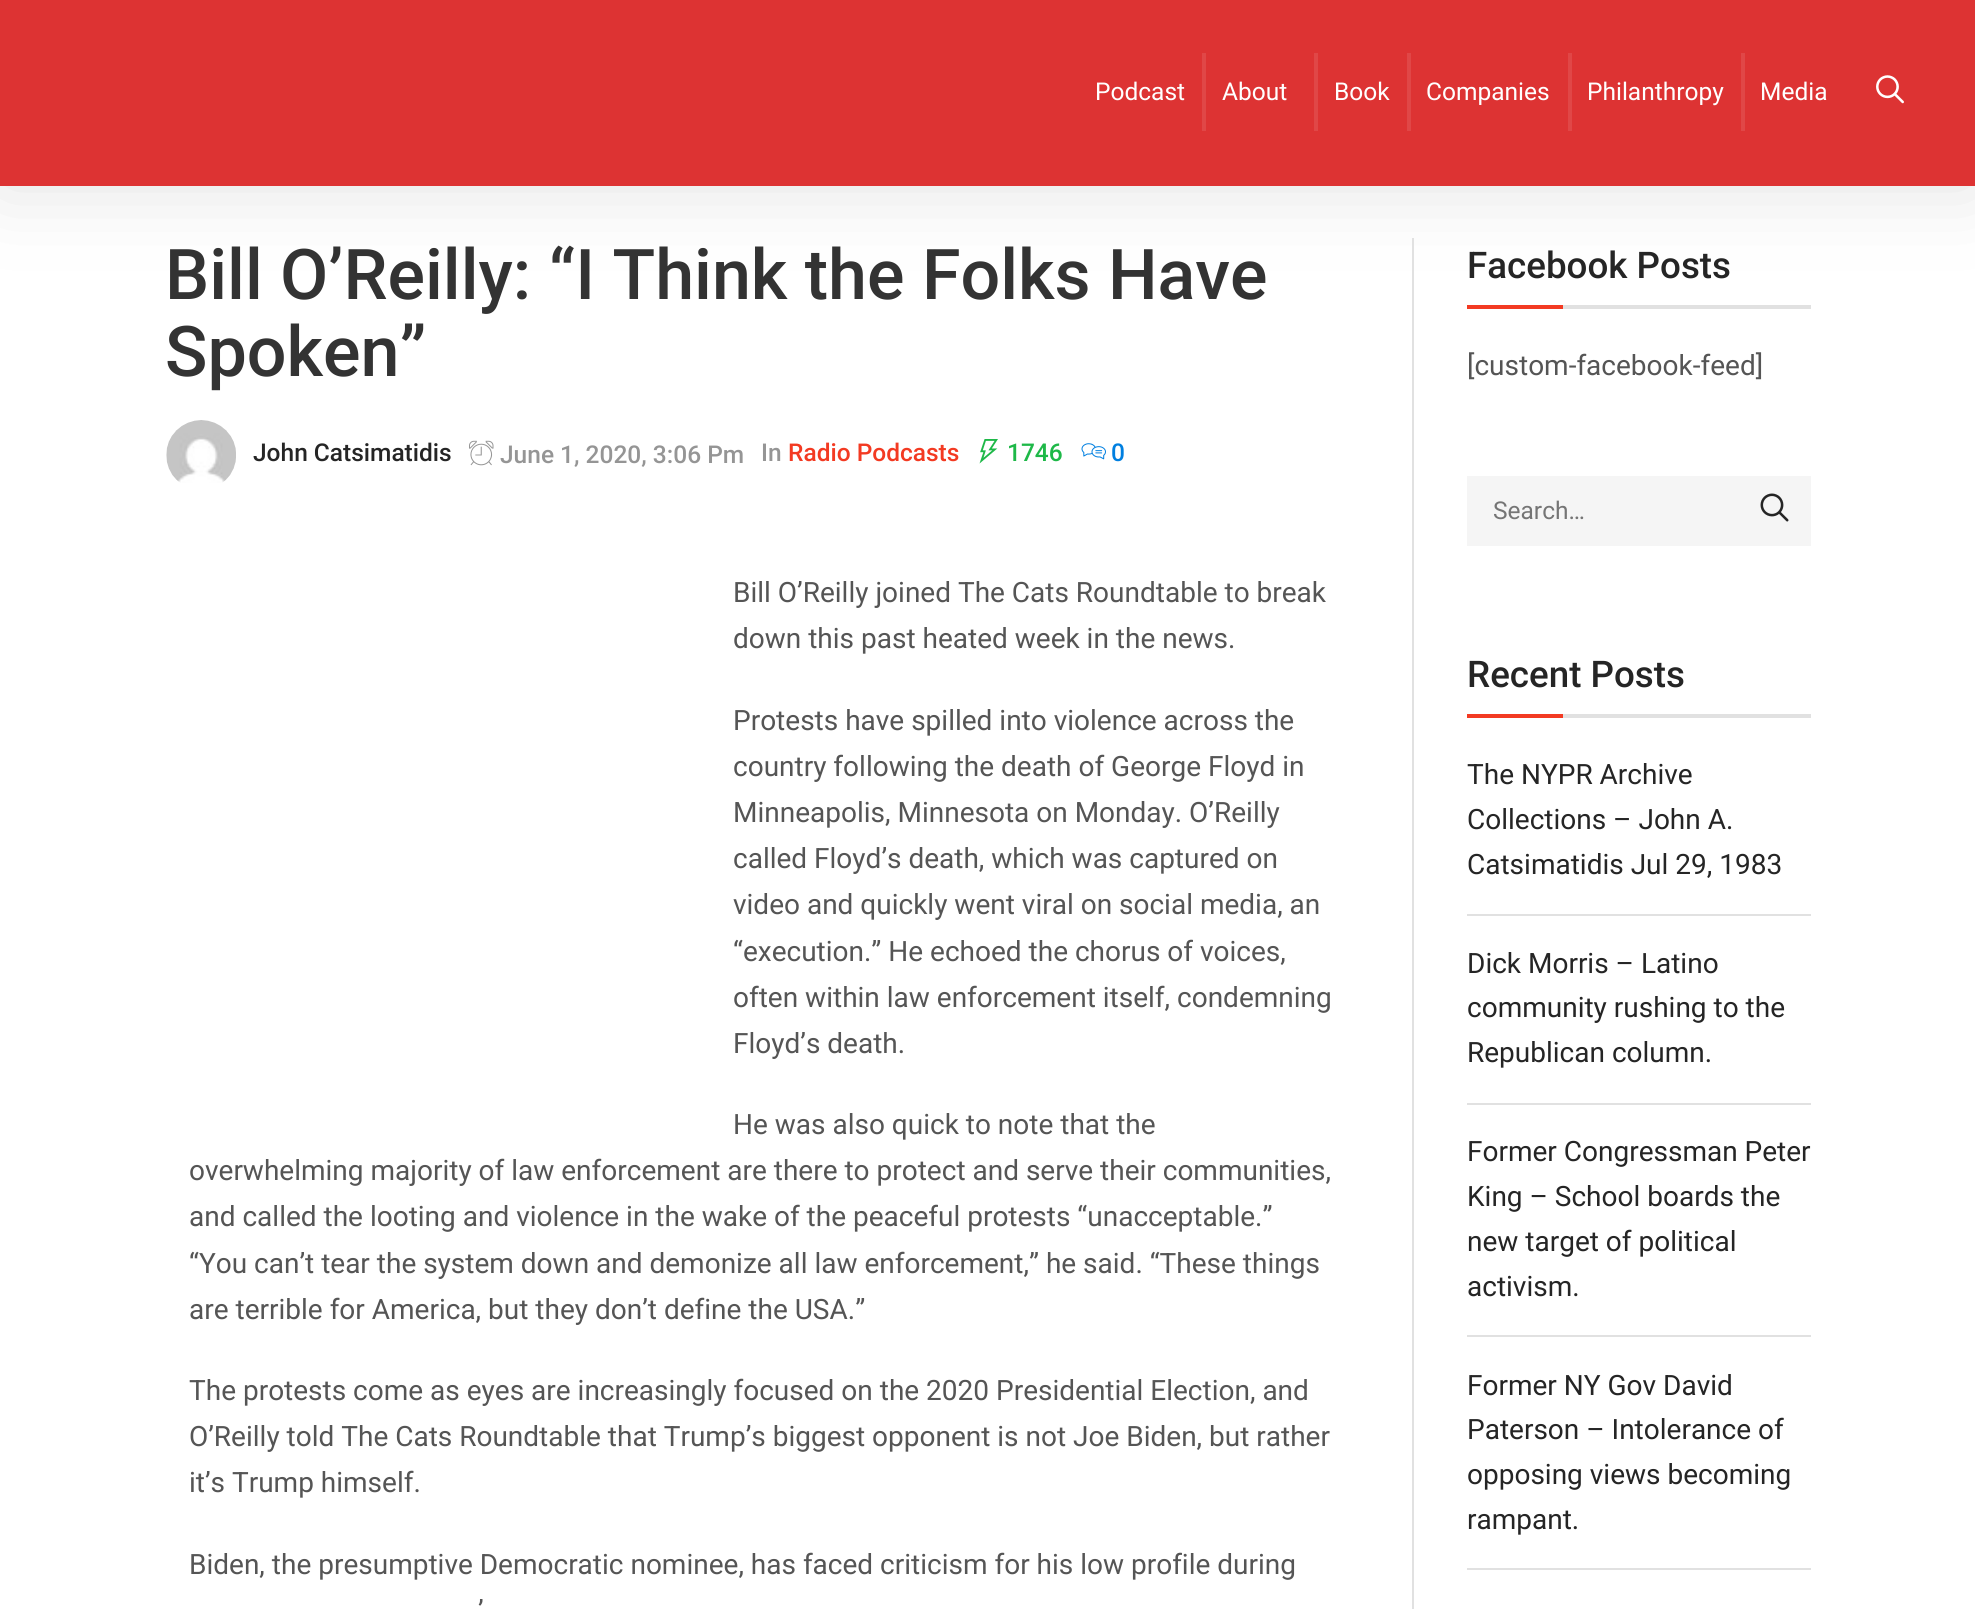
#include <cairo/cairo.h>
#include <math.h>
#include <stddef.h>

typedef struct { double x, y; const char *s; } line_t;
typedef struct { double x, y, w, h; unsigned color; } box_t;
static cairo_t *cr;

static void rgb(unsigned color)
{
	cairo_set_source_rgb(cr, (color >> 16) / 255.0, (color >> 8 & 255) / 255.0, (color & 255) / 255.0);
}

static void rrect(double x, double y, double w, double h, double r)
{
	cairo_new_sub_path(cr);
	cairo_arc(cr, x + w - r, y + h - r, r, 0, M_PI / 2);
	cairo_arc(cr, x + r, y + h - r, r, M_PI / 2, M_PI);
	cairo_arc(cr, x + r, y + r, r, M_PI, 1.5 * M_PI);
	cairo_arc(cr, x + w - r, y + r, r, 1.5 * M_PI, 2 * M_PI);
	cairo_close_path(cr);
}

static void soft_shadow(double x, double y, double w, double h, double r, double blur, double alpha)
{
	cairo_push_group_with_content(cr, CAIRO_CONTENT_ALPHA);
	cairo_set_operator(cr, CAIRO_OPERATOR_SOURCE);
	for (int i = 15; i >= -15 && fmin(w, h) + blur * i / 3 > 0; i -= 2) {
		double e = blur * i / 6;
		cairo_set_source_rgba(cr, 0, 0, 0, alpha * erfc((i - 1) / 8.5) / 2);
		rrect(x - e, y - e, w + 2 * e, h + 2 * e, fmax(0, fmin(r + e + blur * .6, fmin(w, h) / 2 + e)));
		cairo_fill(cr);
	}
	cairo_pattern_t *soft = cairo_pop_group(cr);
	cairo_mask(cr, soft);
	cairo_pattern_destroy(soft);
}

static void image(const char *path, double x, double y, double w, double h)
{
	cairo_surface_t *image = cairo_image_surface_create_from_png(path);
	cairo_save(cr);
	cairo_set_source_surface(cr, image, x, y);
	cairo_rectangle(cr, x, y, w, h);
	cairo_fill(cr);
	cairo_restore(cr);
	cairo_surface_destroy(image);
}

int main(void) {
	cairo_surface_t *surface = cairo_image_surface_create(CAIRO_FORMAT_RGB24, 1975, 1609);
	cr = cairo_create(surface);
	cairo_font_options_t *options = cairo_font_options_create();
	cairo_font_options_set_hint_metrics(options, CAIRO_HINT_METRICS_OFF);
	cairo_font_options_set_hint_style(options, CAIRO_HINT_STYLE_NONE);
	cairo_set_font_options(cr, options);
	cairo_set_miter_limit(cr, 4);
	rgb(0xffffff);
	cairo_paint(cr);
	rgb(0xe1e1e1);
	soft_shadow(0, 0, 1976, 186, 0, 39.5, 1);
	{
		static const box_t items[] = {
			{0, 0, 1975, 186, 0xdd3333},
			{1202, 53, 4, 78, 0xe04747},
			{1314, 53, 4, 78, 0xe04747},
			{1407, 53, 4, 78, 0xe04747},
			{1568, 53, 4, 78, 0xe04747},
			{1741, 53, 4, 78, 0xe04747},
		};
		for (size_t i = 0; i < sizeof items / sizeof *items; i++) {
			rgb(items[i].color);
			cairo_rectangle(cr, items[i].x, items[i].y, items[i].w, items[i].h);
			cairo_fill(cr);
		}
	}
	image("img/1.png", 1876, 75, 28, 29);
	image("img/2.png", 166, 420, 70, 63);
	image("img/3.png", 469, 440, 25, 26);
	image("img/4.png", 979, 439, 19, 25);
	image("img/5.png", 1081, 443, 25, 17);
	{
		static const box_t items[] = {
			{1412, 238, 2, 1371, 0xe1e1e1},
			{1563, 305, 248, 4, 0xe1e1e1},
			{1467, 305, 96, 4, 0xf33a22},
			{1467, 476, 344, 70, 0xf5f5f5},
		};
		for (size_t i = 0; i < sizeof items / sizeof *items; i++) {
			rgb(items[i].color);
			cairo_rectangle(cr, items[i].x, items[i].y, items[i].w, items[i].h);
			cairo_fill(cr);
		}
	}
	image("img/6.png", 1760, 493, 29, 29);
	{
		static const box_t items[] = {
			{1563, 714, 248, 4, 0xe1e1e1},
			{1467, 714, 96, 4, 0xf33a22},
			{1467, 914, 344, 2, 0xe1e1e1},
			{1467, 1103, 344, 2, 0xe1e1e1},
			{1467, 1335, 344, 2, 0xe1e1e1},
			{1467, 1568, 344, 2, 0xe1e1e1},
		};
		for (size_t i = 0; i < sizeof items / sizeof *items; i++) {
			rgb(items[i].color);
			cairo_rectangle(cr, items[i].x, items[i].y, items[i].w, items[i].h);
			cairo_fill(cr);
		}
	}
	cairo_select_font_face(cr, "Roboto", CAIRO_FONT_SLANT_NORMAL, CAIRO_FONT_WEIGHT_NORMAL);
	cairo_set_font_size(cr, 24.5);
	rgb(0xffffff);
	{
		static const line_t items[] = {
			{1095, 100, "Podcast"},
			{1222, 100, "About"},
			{1334, 100, "Book"},
			{1426, 100, "Companies"},
			{1587, 100, "Philanthropy"},
			{1760, 100, "Media"},
		};
		for (size_t i = 0; i < sizeof items / sizeof *items; i++) {
			cairo_move_to(cr, items[i].x, items[i].y);
			cairo_show_text(cr, items[i].s);
		}
	}
	cairo_select_font_face(cr, "Roboto Medium", CAIRO_FONT_SLANT_NORMAL, CAIRO_FONT_WEIGHT_NORMAL);
	cairo_set_font_size(cr, 70);
	rgb(0x333333);
	cairo_move_to(cr, 165, 299);
	cairo_show_text(cr, "Bill O’Reilly: “I Think the Folks Have");
	cairo_move_to(cr, 165, 376);
	cairo_show_text(cr, "Spoken”");
	cairo_set_font_size(cr, 24.5);
	rgb(0x252525);
	cairo_move_to(cr, 253, 461);
	cairo_show_text(cr, "John Catsimatidis");
	rgb(0x959595);
	cairo_move_to(cr, 500, 463);
	cairo_show_text(cr, "June 1, 2020, 3:06 Pm");
	cairo_move_to(cr, 761, 461);
	cairo_show_text(cr, "In");
	rgb(0xf33a22);
	cairo_move_to(cr, 788, 461);
	cairo_show_text(cr, "Radio Podcasts");
	rgb(0x1eb848);
	cairo_move_to(cr, 1007, 461);
	cairo_show_text(cr, "1746");
	rgb(0x007fe0);
	cairo_move_to(cr, 1111, 461);
	cairo_show_text(cr, "0");
	cairo_select_font_face(cr, "Roboto", CAIRO_FONT_SLANT_NORMAL, CAIRO_FONT_WEIGHT_NORMAL);
	cairo_set_font_size(cr, 28);
	rgb(0x555555);
	{
		static const line_t items[] = {
			{733, 602, "Bill O’Reilly joined The Cats Roundtable to break"},
			{733, 648, "down this past heated week in the news."},
			{733, 730, "Protests have spilled into violence across the"},
			{733, 776, "country following the death of George Floyd in"},
			{733, 822, "Minneapolis, Minnesota on Monday. O’Reilly"},
			{733, 868, "called Floyd’s death, which was captured on"},
			{733, 914, "video and quickly went viral on social media, an"},
			{733, 961, "“execution.” He echoed the chorus of voices,"},
			{733, 1007, "often within law enforcement itself, condemning"},
			{733, 1053, "Floyd’s death."},
			{733, 1134, "He was also quick to note that the"},
			{189, 1180, "overwhelming majority of law enforcement are there to protect and serve their communities,"},
			{189, 1226, "and called the looting and violence in the wake of the peaceful protests “unacceptable.”"},
			{189, 1273, "“You can’t tear the system down and demonize all law enforcement,” he said. “These things"},
			{189, 1319, "are terrible for America, but they don’t define the USA.”"},
			{189, 1400, "The protests come as eyes are increasingly focused on the 2020 Presidential Election, and"},
			{189, 1446, "O’Reilly told The Cats Roundtable that Trump’s biggest opponent is not Joe Biden, but rather"},
			{189, 1492, "it’s Trump himself."},
			{189, 1574, "Biden, the presumptive Democratic nominee, has faced criticism for his low profile during"},
			{478, 1620, "’"},
		};
		for (size_t i = 0; i < sizeof items / sizeof *items; i++) {
			cairo_move_to(cr, items[i].x, items[i].y);
			cairo_show_text(cr, items[i].s);
		}
	}
	cairo_select_font_face(cr, "Roboto Medium", CAIRO_FONT_SLANT_NORMAL, CAIRO_FONT_WEIGHT_NORMAL);
	cairo_set_font_size(cr, 36.75);
	rgb(0x252525);
	cairo_move_to(cr, 1467, 278);
	cairo_show_text(cr, "Facebook Posts");
	cairo_select_font_face(cr, "Roboto", CAIRO_FONT_SLANT_NORMAL, CAIRO_FONT_WEIGHT_NORMAL);
	cairo_set_font_size(cr, 28);
	rgb(0x555555);
	cairo_move_to(cr, 1467, 375);
	cairo_show_text(cr, "[custom-facebook-feed]");
	cairo_set_font_size(cr, 24.5);
	rgb(0x757575);
	cairo_move_to(cr, 1493, 519);
	cairo_show_text(cr, "Search…");
	cairo_select_font_face(cr, "Roboto Medium", CAIRO_FONT_SLANT_NORMAL, CAIRO_FONT_WEIGHT_NORMAL);
	cairo_set_font_size(cr, 36.75);
	rgb(0x252525);
	cairo_move_to(cr, 1467, 687);
	cairo_show_text(cr, "Recent Posts");
	cairo_select_font_face(cr, "Roboto", CAIRO_FONT_SLANT_NORMAL, CAIRO_FONT_WEIGHT_NORMAL);
	cairo_set_font_size(cr, 28);
	{
		static const line_t items[] = {
			{1467, 784, "The NYPR Archive"},
			{1467, 829, "Collections – John A."},
			{1467, 874, "Catsimatidis Jul 29, 1983"},
			{1467, 973, "Dick Morris – Latino"},
			{1467, 1017, "community rushing to the"},
			{1467, 1062, "Republican column."},
			{1467, 1161, "Former Congressman Peter"},
			{1467, 1206, "King – School boards the"},
			{1467, 1251, "new target of political"},
			{1467, 1296, "activism."},
			{1467, 1395, "Former NY Gov David"},
			{1467, 1439, "Paterson – Intolerance of"},
			{1467, 1484, "opposing views becoming"},
			{1467, 1529, "rampant."},
		};
		for (size_t i = 0; i < sizeof items / sizeof *items; i++) {
			cairo_move_to(cr, items[i].x, items[i].y);
			cairo_show_text(cr, items[i].s);
		}
	}
	cairo_surface_write_to_png(surface, "page.png");
	cairo_font_options_destroy(options);
	cairo_destroy(cr);
	cairo_surface_destroy(surface);
	return 0;
}
